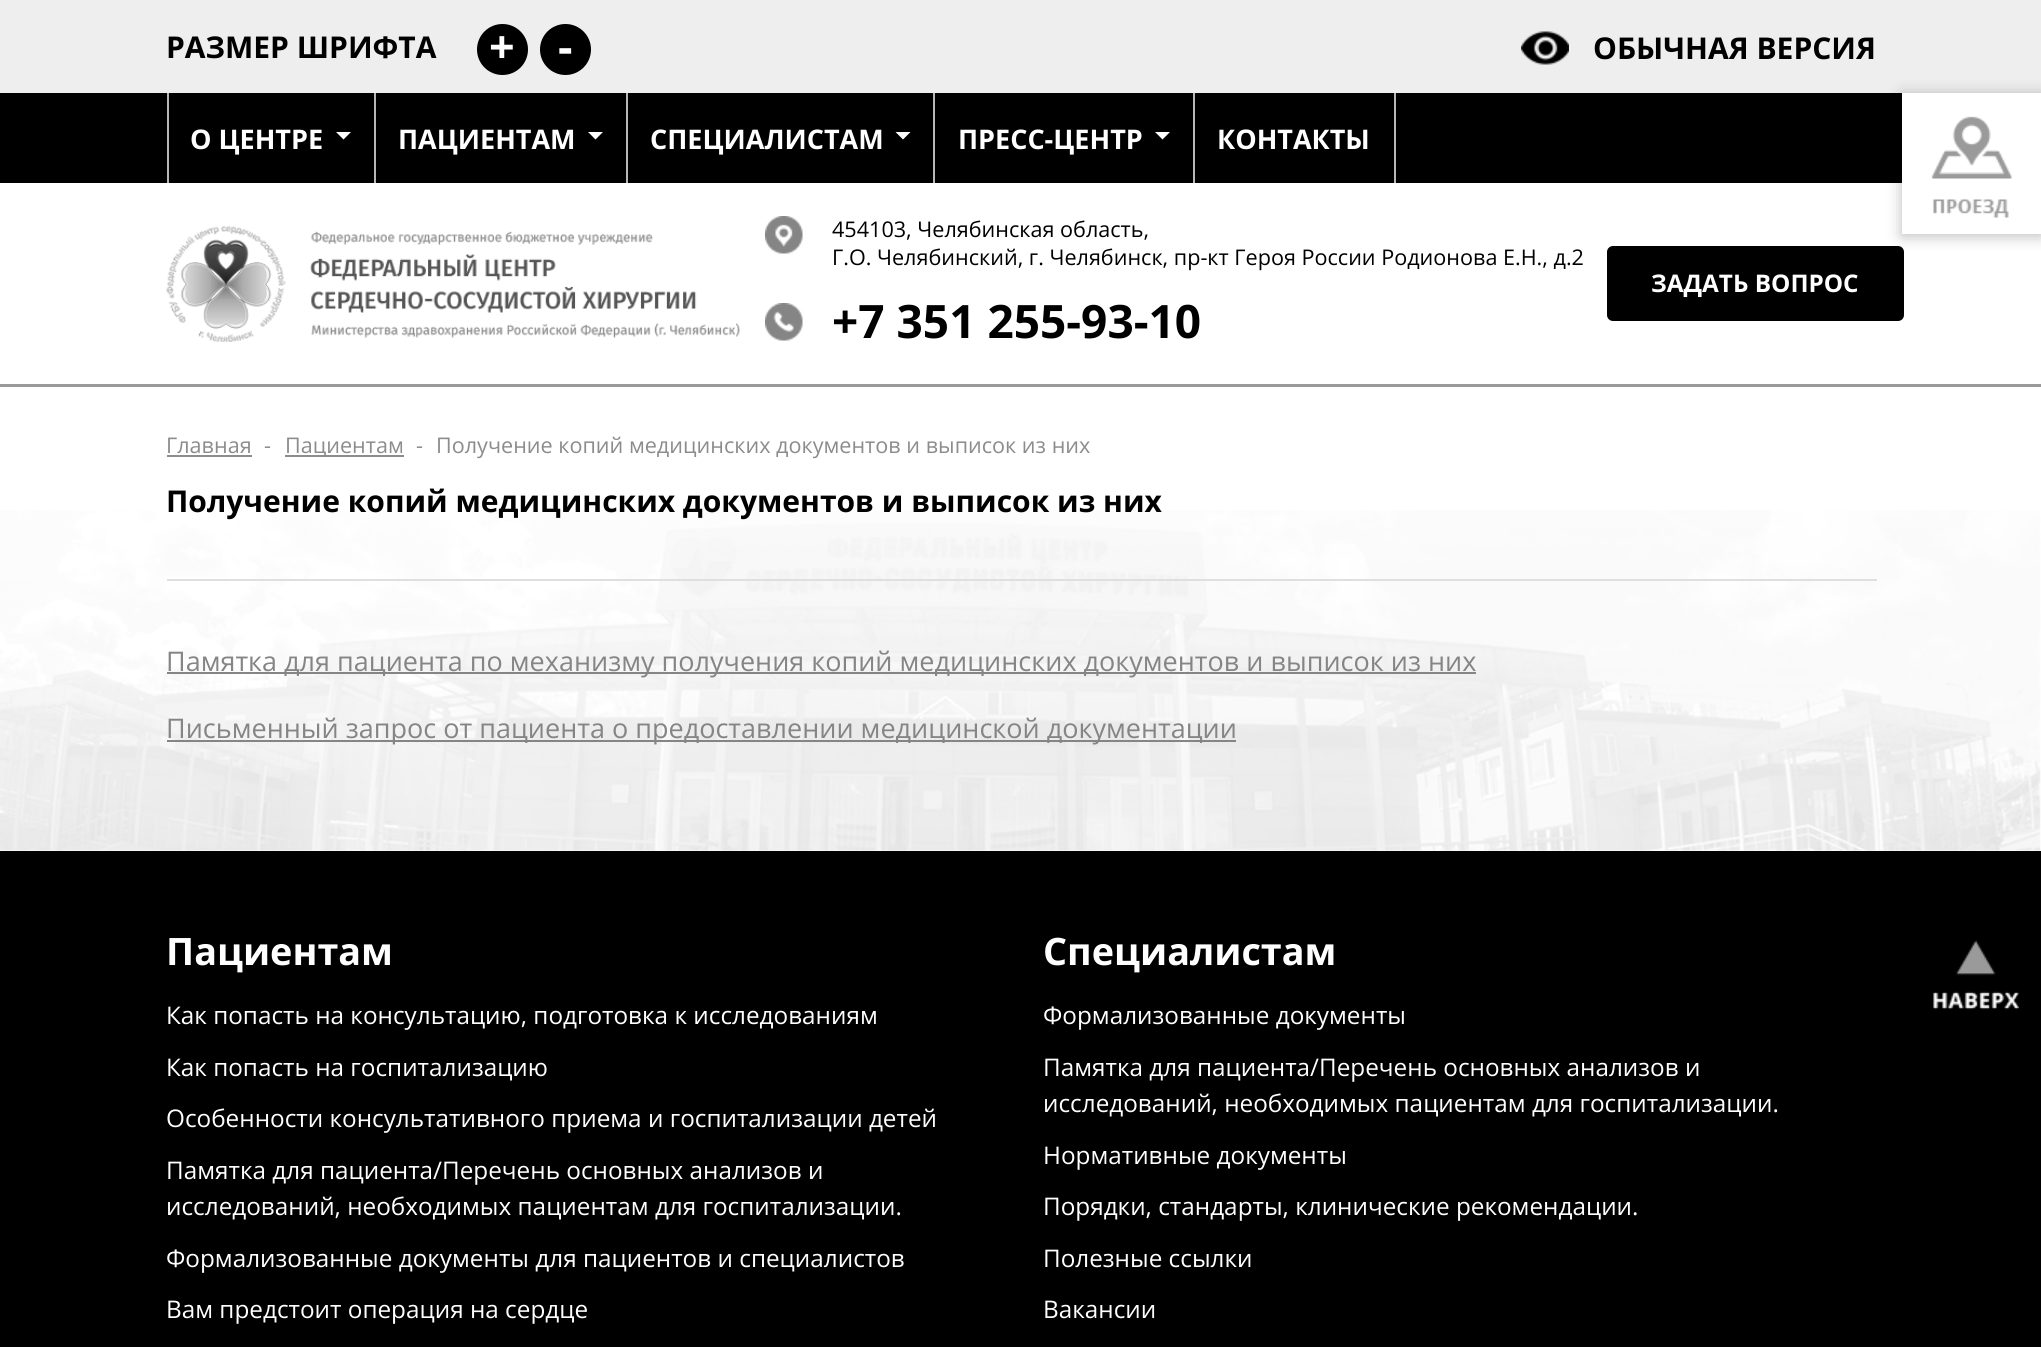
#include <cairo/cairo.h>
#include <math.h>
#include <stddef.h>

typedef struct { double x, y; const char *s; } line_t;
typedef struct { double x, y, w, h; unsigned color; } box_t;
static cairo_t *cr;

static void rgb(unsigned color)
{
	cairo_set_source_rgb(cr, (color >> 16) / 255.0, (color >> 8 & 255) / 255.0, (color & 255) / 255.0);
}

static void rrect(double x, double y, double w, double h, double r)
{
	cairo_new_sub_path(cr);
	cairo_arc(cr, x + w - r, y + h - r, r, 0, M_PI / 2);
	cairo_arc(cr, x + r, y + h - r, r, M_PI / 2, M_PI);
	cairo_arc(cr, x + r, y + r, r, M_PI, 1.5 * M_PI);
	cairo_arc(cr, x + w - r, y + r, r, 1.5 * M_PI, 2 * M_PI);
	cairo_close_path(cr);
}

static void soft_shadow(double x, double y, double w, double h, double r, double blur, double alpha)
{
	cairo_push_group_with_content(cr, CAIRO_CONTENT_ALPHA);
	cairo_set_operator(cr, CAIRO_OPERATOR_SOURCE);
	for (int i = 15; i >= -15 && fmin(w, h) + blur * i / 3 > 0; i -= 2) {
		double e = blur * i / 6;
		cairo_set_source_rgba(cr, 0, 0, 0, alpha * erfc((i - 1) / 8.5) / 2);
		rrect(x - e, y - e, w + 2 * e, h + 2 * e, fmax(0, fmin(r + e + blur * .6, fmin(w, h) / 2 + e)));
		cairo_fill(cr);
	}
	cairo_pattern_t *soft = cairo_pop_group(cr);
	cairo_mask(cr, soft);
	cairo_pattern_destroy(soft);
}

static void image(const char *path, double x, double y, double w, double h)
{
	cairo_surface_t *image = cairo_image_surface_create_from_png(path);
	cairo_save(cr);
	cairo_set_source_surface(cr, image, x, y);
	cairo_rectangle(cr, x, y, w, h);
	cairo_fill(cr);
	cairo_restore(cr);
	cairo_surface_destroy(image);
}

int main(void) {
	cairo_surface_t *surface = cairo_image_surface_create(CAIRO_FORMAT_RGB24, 2041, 1347);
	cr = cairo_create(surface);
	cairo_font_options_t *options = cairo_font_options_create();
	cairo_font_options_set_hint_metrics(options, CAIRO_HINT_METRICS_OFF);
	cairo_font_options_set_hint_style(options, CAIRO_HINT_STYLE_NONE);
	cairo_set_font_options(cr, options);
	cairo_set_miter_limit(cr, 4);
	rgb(0xffffff);
	cairo_paint(cr);
	rgb(0xeeeeee);
	cairo_rectangle(cr, 0, 0, 2041, 93);
	cairo_fill(cr);
	rgb(0x000000);
	cairo_arc(cr, 502.5, 49.5, 25.5, 0, 2 * M_PI);
	cairo_fill(cr);
	cairo_arc(cr, 565.5, 49.5, 25.5, 0, 2 * M_PI);
	cairo_fill(cr);
	image("img/1.png", 1521, 31, 48, 34);
	{
		static const box_t items[] = {
			{0, 384, 2041, 3, 0x9a9a9a},
			{0, 93, 1902, 90, 0x000000},
			{1394, 93, 2, 90, 0xb7b7b7},
			{167, 93, 2, 90, 0xb7b7b7},
		};
		for (size_t i = 0; i < sizeof items / sizeof *items; i++) {
			rgb(items[i].color);
			cairo_rectangle(cr, items[i].x, items[i].y, items[i].w, items[i].h);
			cairo_fill(cr);
		}
	}
	rgb(0xffffff);
	cairo_new_path(cr);
	cairo_move_to(cr, 336, 132);
	cairo_line_to(cr, 351, 132);
	cairo_line_to(cr, 343.5, 139.5);
	cairo_close_path(cr);
	cairo_fill(cr);
	rgb(0xb7b7b7);
	cairo_rectangle(cr, 374, 93, 2, 90);
	cairo_fill(cr);
	rgb(0xffffff);
	cairo_new_path(cr);
	cairo_move_to(cr, 588, 132);
	cairo_line_to(cr, 603, 132);
	cairo_line_to(cr, 595.5, 139.5);
	cairo_close_path(cr);
	cairo_fill(cr);
	rgb(0xb7b7b7);
	cairo_rectangle(cr, 626, 93, 2, 90);
	cairo_fill(cr);
	rgb(0xffffff);
	cairo_new_path(cr);
	cairo_move_to(cr, 895.5, 132);
	cairo_line_to(cr, 910.5, 132);
	cairo_line_to(cr, 903, 139.5);
	cairo_close_path(cr);
	cairo_fill(cr);
	rgb(0xb7b7b7);
	cairo_rectangle(cr, 933, 93, 2, 90);
	cairo_fill(cr);
	rgb(0xffffff);
	cairo_new_path(cr);
	cairo_move_to(cr, 1155, 132);
	cairo_line_to(cr, 1170, 132);
	cairo_line_to(cr, 1162.5, 139.5);
	cairo_close_path(cr);
	cairo_fill(cr);
	rgb(0xb7b7b7);
	cairo_rectangle(cr, 1193, 93, 2, 90);
	cairo_fill(cr);
	rgb(0x000000);
	rrect(1607, 246, 297, 75, 6);
	cairo_fill(cr);
	rgb(0x000000);
	soft_shadow(1902, 95, 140, 141, 0, 7.5, 0.27);
	rgb(0xffffff);
	cairo_rectangle(cr, 1902, 93, 139, 141);
	cairo_fill(cr);
	image("img/2.png", 1931, 116, 81, 102);
	image("img/3.png", 166, 226, 575, 116);
	image("img/4.png", 765, 216, 38, 38);
	image("img/5.png", 765, 303, 38, 38);
	image("img/6.png", 0, 510, 2041, 341);
	{
		static const box_t items[] = {
			{167, 455, 85, 2, 0x8c8c8c},
			{285, 455, 119, 2, 0x8c8c8c},
			{167, 579, 1710, 2, 0xdfdfdf},
			{167, 672, 1309, 2, 0x858585},
			{167, 740, 1069, 2, 0x858585},
			{0, 851, 2041, 496, 0x000000},
		};
		for (size_t i = 0; i < sizeof items / sizeof *items; i++) {
			rgb(items[i].color);
			cairo_rectangle(cr, items[i].x, items[i].y, items[i].w, items[i].h);
			cairo_fill(cr);
		}
	}
	image("img/7.png", 1933, 940, 86, 70);
	cairo_select_font_face(cr, "Open Sans", CAIRO_FONT_SLANT_NORMAL, CAIRO_FONT_WEIGHT_BOLD);
	cairo_set_font_size(cr, 30);
	cairo_move_to(cr, 166, 58);
	cairo_show_text(cr, "РАЗМЕР ШРИФТА");
	cairo_set_font_size(cr, 45);
	rgb(0xffffff);
	cairo_move_to(cr, 489, 63);
	cairo_show_text(cr, "+");
	cairo_move_to(cr, 558, 63);
	cairo_show_text(cr, "-");
	cairo_set_font_size(cr, 30);
	rgb(0x000000);
	cairo_move_to(cr, 1593, 59);
	cairo_show_text(cr, "ОБЫЧНАЯ ВЕРСИЯ");
	cairo_set_font_size(cr, 27);
	rgb(0xffffff);
	{
		static const line_t items[] = {
			{190, 149, "О ЦЕНТРЕ"},
			{398, 149, "ПАЦИЕНТАМ"},
			{650, 149, "СПЕЦИАЛИСТАМ"},
			{958, 149, "ПРЕСС-ЦЕНТР"},
			{1217, 149, "КОНТАКТЫ"},
		};
		for (size_t i = 0; i < sizeof items / sizeof *items; i++) {
			cairo_move_to(cr, items[i].x, items[i].y);
			cairo_show_text(cr, items[i].s);
		}
	}
	cairo_select_font_face(cr, "Open Sans", CAIRO_FONT_SLANT_NORMAL, CAIRO_FONT_WEIGHT_NORMAL);
	cairo_set_font_size(cr, 21.6);
	rgb(0x000000);
	cairo_move_to(cr, 832, 237);
	cairo_show_text(cr, "454103, Челябинская область,");
	cairo_move_to(cr, 832, 265);
	cairo_show_text(cr, "Г.О. Челябинский, г. Челябинск, пр-кт Героя России Родионова Е.Н., д.2");
	cairo_select_font_face(cr, "Open Sans", CAIRO_FONT_SLANT_NORMAL, CAIRO_FONT_WEIGHT_BOLD);
	cairo_set_font_size(cr, 46);
	cairo_move_to(cr, 832, 338);
	cairo_show_text(cr, "+7 351 255-93-10");
	cairo_set_font_size(cr, 24.3);
	rgb(0xffffff);
	cairo_move_to(cr, 1651, 292);
	cairo_show_text(cr, "ЗАДАТЬ ВОПРОС");
	cairo_select_font_face(cr, "Open Sans", CAIRO_FONT_SLANT_NORMAL, CAIRO_FONT_WEIGHT_NORMAL);
	cairo_set_font_size(cr, 21.6);
	rgb(0x8c8c8c);
	{
		static const line_t items[] = {
			{166, 453, "Главная"},
			{264, 453, "-"},
			{285, 453, "Пациентам"},
			{416, 453, "-"},
			{436, 453, "Получение копий медицинских документов и выписок из них"},
		};
		for (size_t i = 0; i < sizeof items / sizeof *items; i++) {
			cairo_move_to(cr, items[i].x, items[i].y);
			cairo_show_text(cr, items[i].s);
		}
	}
	cairo_select_font_face(cr, "Open Sans", CAIRO_FONT_SLANT_NORMAL, CAIRO_FONT_WEIGHT_BOLD);
	cairo_set_font_size(cr, 30);
	rgb(0x000000);
	cairo_move_to(cr, 166, 512);
	cairo_show_text(cr, "Получение копий медицинских документов и выписок из них");
	cairo_select_font_face(cr, "Open Sans", CAIRO_FONT_SLANT_NORMAL, CAIRO_FONT_WEIGHT_NORMAL);
	cairo_set_font_size(cr, 27);
	rgb(0x858585);
	cairo_move_to(cr, 166, 671);
	cairo_show_text(cr, "Памятка для пациента по механизму получения копий медицинских документов и выписок из них");
	cairo_move_to(cr, 166, 738);
	cairo_show_text(cr, "Письменный запрос от пациента о предоставлении медицинской документации");
	cairo_select_font_face(cr, "Open Sans", CAIRO_FONT_SLANT_NORMAL, CAIRO_FONT_WEIGHT_BOLD);
	cairo_set_font_size(cr, 37.75);
	rgb(0xffffff);
	cairo_move_to(cr, 166, 965);
	cairo_show_text(cr, "Пациентам");
	cairo_select_font_face(cr, "Open Sans", CAIRO_FONT_SLANT_NORMAL, CAIRO_FONT_WEIGHT_NORMAL);
	cairo_set_font_size(cr, 24.3);
	{
		static const line_t items[] = {
			{166, 1024, "Как попасть на консультацию, подготовка к исследованиям"},
			{166, 1076, "Как попасть на госпитализацию"},
			{166, 1127, "Особенности консультативного приема и госпитализации детей"},
			{166, 1179, "Памятка для пациента/Перечень основных анализов и"},
			{166, 1215, "исследований, необходимых пациентам для госпитализации."},
			{166, 1267, "Формализованные документы для пациентов и специалистов"},
			{166, 1318, "Вам предстоит операция на сердце"},
		};
		for (size_t i = 0; i < sizeof items / sizeof *items; i++) {
			cairo_move_to(cr, items[i].x, items[i].y);
			cairo_show_text(cr, items[i].s);
		}
	}
	cairo_select_font_face(cr, "Open Sans", CAIRO_FONT_SLANT_NORMAL, CAIRO_FONT_WEIGHT_BOLD);
	cairo_set_font_size(cr, 37.75);
	cairo_move_to(cr, 1043, 965);
	cairo_show_text(cr, "Специалистам");
	cairo_select_font_face(cr, "Open Sans", CAIRO_FONT_SLANT_NORMAL, CAIRO_FONT_WEIGHT_NORMAL);
	cairo_set_font_size(cr, 24.3);
	{
		static const line_t items[] = {
			{1043, 1024, "Формализованные документы"},
			{1043, 1076, "Памятка для пациента/Перечень основных анализов и"},
			{1043, 1112, "исследований, необходимых пациентам для госпитализации."},
			{1043, 1164, "Нормативные документы"},
			{1043, 1215, "Порядки, стандарты, клинические рекомендации."},
			{1043, 1267, "Полезные ссылки"},
			{1043, 1318, "Вакансии"},
		};
		for (size_t i = 0; i < sizeof items / sizeof *items; i++) {
			cairo_move_to(cr, items[i].x, items[i].y);
			cairo_show_text(cr, items[i].s);
		}
	}
	cairo_surface_write_to_png(surface, "page.png");
	cairo_font_options_destroy(options);
	cairo_destroy(cr);
	cairo_surface_destroy(surface);
	return 0;
}
